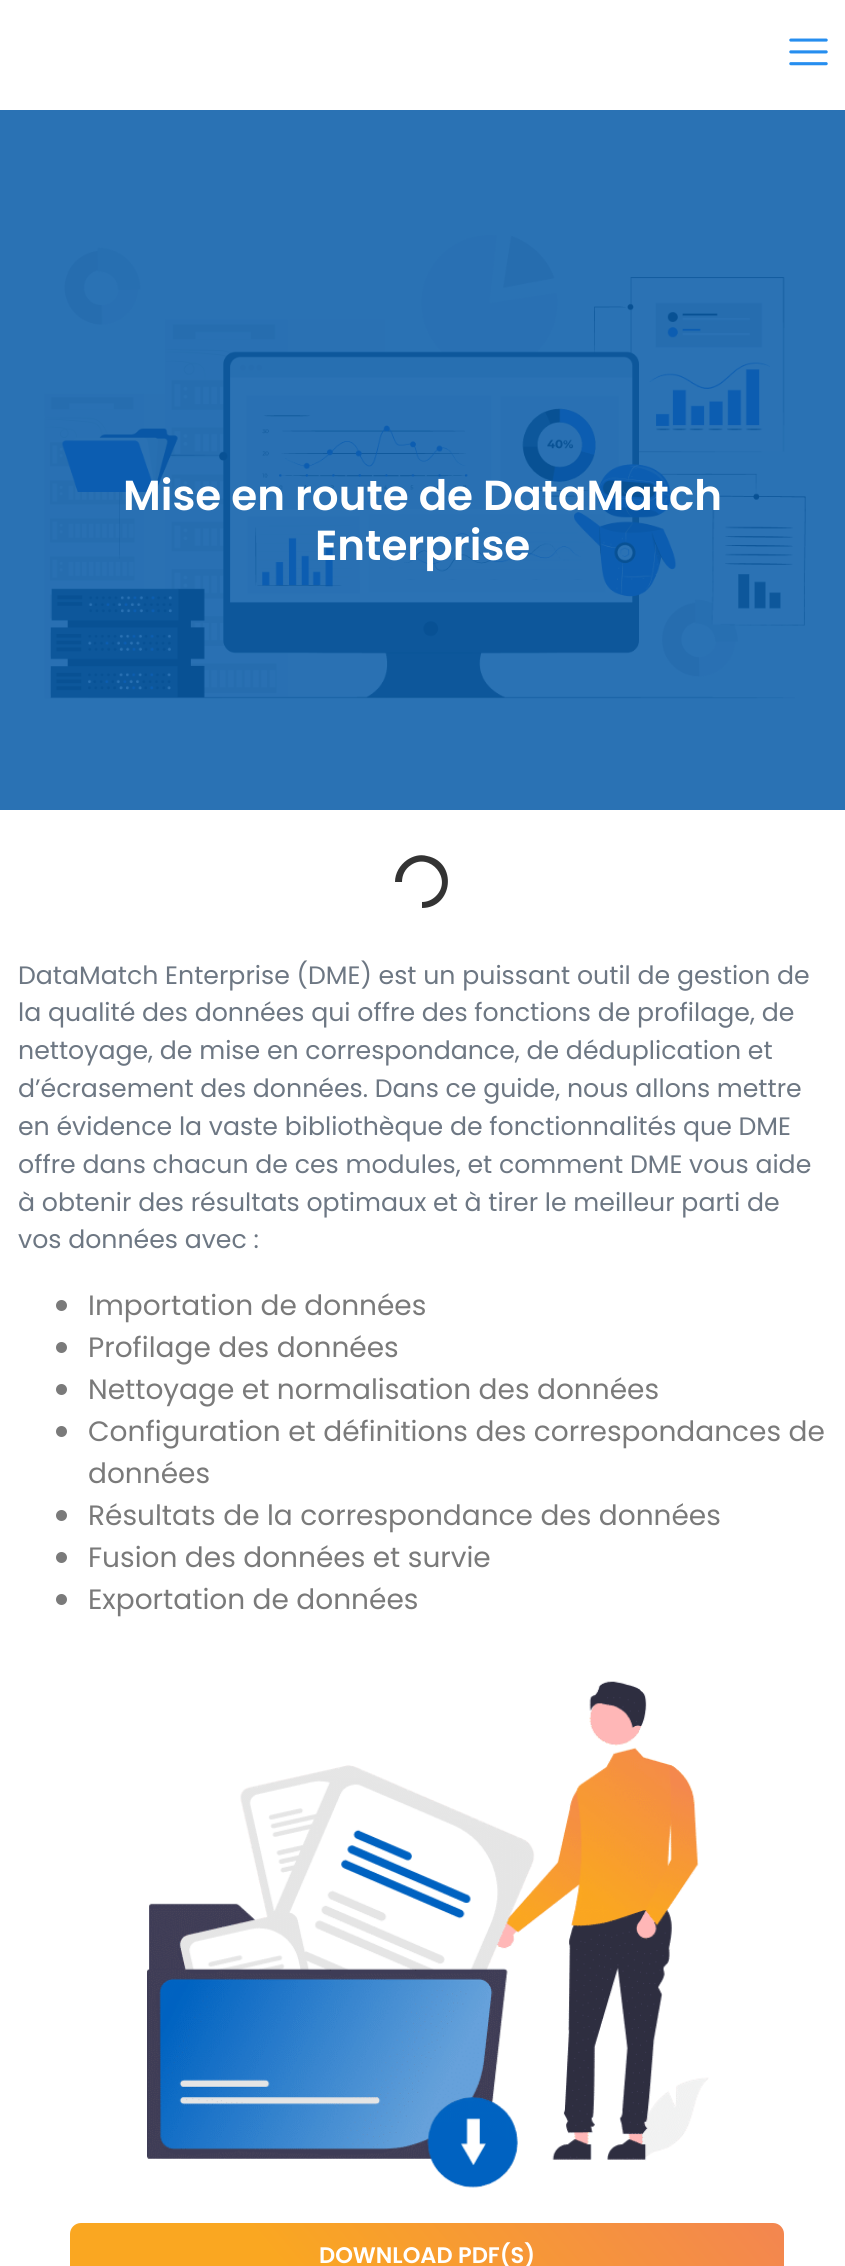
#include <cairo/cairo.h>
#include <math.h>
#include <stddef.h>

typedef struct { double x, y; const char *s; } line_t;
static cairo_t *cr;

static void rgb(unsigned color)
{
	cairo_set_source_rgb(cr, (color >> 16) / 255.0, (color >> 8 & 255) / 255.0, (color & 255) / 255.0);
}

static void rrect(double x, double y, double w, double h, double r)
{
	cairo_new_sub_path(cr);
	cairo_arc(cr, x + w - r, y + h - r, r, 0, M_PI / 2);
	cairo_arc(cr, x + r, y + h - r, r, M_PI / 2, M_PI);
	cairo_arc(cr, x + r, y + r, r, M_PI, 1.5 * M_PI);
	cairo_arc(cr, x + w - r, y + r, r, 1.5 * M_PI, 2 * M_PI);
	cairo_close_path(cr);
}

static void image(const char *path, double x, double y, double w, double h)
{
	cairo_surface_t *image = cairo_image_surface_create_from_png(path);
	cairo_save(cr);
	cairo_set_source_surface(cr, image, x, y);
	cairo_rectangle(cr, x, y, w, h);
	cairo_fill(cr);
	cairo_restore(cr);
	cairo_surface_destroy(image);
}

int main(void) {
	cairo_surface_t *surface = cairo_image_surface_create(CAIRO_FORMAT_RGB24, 845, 2266);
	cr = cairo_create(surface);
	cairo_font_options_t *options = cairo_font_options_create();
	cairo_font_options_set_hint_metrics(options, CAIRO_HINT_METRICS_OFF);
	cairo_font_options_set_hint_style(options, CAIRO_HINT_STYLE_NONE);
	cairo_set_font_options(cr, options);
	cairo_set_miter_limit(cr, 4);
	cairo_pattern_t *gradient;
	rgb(0xffffff);
	cairo_paint(cr);
	rgb(0x2a72b4);
	cairo_rectangle(cr, 0, 110, 845, 700);
	cairo_fill(cr);
	image("img/1.png", 789, 38, 39, 28);
	image("img/2.png", 44, 235, 762, 464);
	rgb(0x333333);
	cairo_new_path(cr);
	cairo_move_to(cr, 422, 908);
	cairo_line_to(cr, 422, 902);
	cairo_curve_to(cr, 427, 902, 432, 900, 436, 896);
	cairo_curve_to(cr, 453, 879, 430, 852, 411, 865);
	cairo_curve_to(cr, 405, 869, 402, 875, 402, 882);
	cairo_line_to(cr, 395, 882);
	cairo_curve_to(cr, 395, 873, 400, 865, 407, 860);
	cairo_curve_to(cr, 413, 856, 420, 854, 427, 856);
	cairo_curve_to(cr, 458, 862, 453, 908, 422, 908);
	cairo_close_path(cr);
	cairo_fill(cr);
	rgb(0x7a7a7a);
	cairo_arc(cr, 61.5, 1305.5, 5.5, 0, 2 * M_PI);
	cairo_fill(cr);
	cairo_arc(cr, 61.5, 1347.5, 5.5, 0, 2 * M_PI);
	cairo_fill(cr);
	cairo_arc(cr, 61.5, 1389.5, 5.5, 0, 2 * M_PI);
	cairo_fill(cr);
	cairo_arc(cr, 61.5, 1431.5, 5.5, 0, 2 * M_PI);
	cairo_fill(cr);
	cairo_arc(cr, 61.5, 1515.5, 5.5, 0, 2 * M_PI);
	cairo_fill(cr);
	cairo_arc(cr, 61.5, 1557.5, 5.5, 0, 2 * M_PI);
	cairo_fill(cr);
	cairo_arc(cr, 61.5, 1599.5, 5.5, 0, 2 * M_PI);
	cairo_fill(cr);
	image("img/3.png", 147, 1681, 562, 507);
	gradient = cairo_pattern_create_linear(201, 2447, 653, 2067);
	cairo_pattern_add_color_stop_rgba(gradient, 0.3, 0.98, 0.655, 0.129, 1);
	cairo_pattern_add_color_stop_rgba(gradient, 1, 0.953, 0.525, 0.314, 1);
	cairo_set_source(cr, gradient);
	cairo_pattern_destroy(gradient);
	rrect(70, 2223, 714, 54, 11);
	cairo_fill(cr);
	cairo_select_font_face(cr, "Poppins SemiBold", CAIRO_FONT_SLANT_NORMAL, CAIRO_FONT_WEIGHT_NORMAL);
	cairo_set_font_size(cr, 42);
	rgb(0xffffff);
	cairo_move_to(cr, 123, 510);
	cairo_show_text(cr, "Mise en route de DataMatch");
	cairo_move_to(cr, 315, 560);
	cairo_show_text(cr, "Enterprise");
	cairo_select_font_face(cr, "Poppins", CAIRO_FONT_SLANT_NORMAL, CAIRO_FONT_WEIGHT_NORMAL);
	cairo_set_font_size(cr, 25.2);
	rgb(0x6d7783);
	{
		static const line_t items[] = {
			{18, 984, "DataMatch Enterprise (DME) est un puissant outil de gestion de"},
			{18, 1021, "la qualité des données qui offre des fonctions de profilage, de"},
			{18, 1059, "nettoyage, de mise en correspondance, de déduplication et"},
			{18, 1097, "d’écrasement des données. Dans ce guide, nous allons mettre"},
			{18, 1135, "en évidence la vaste bibliothèque de fonctionnalités que DME"},
			{18, 1173, "offre dans chacun de ces modules, et comment DME vous aide"},
			{18, 1211, "à obtenir des résultats optimaux et à tirer le meilleur parti de"},
			{18, 1248, "vos données avec :"},
		};
		for (size_t i = 0; i < sizeof items / sizeof *items; i++) {
			cairo_move_to(cr, items[i].x, items[i].y);
			cairo_show_text(cr, items[i].s);
		}
	}
	cairo_set_font_size(cr, 28);
	rgb(0x7a7a7a);
	{
		static const line_t items[] = {
			{88, 1315, "Importation de données"},
			{88, 1357, "Profilage des données"},
			{88, 1399, "Nettoyage et normalisation des données"},
			{88, 1441, "Configuration et définitions des correspondances de"},
			{88, 1483, "données"},
			{88, 1525, "Résultats de la correspondance des données"},
			{88, 1567, "Fusion des données et survie"},
			{88, 1609, "Exportation de données"},
		};
		for (size_t i = 0; i < sizeof items / sizeof *items; i++) {
			cairo_move_to(cr, items[i].x, items[i].y);
			cairo_show_text(cr, items[i].s);
		}
	}
	cairo_select_font_face(cr, "Poppins SemiBold", CAIRO_FONT_SLANT_NORMAL, CAIRO_FONT_WEIGHT_NORMAL);
	cairo_set_font_size(cr, 22.5);
	rgb(0xffffff);
	cairo_move_to(cr, 319, 2263);
	cairo_show_text(cr, "DOWNLOAD PDF(S)");
	cairo_surface_write_to_png(surface, "page.png");
	cairo_font_options_destroy(options);
	cairo_destroy(cr);
	cairo_surface_destroy(surface);
	return 0;
}
